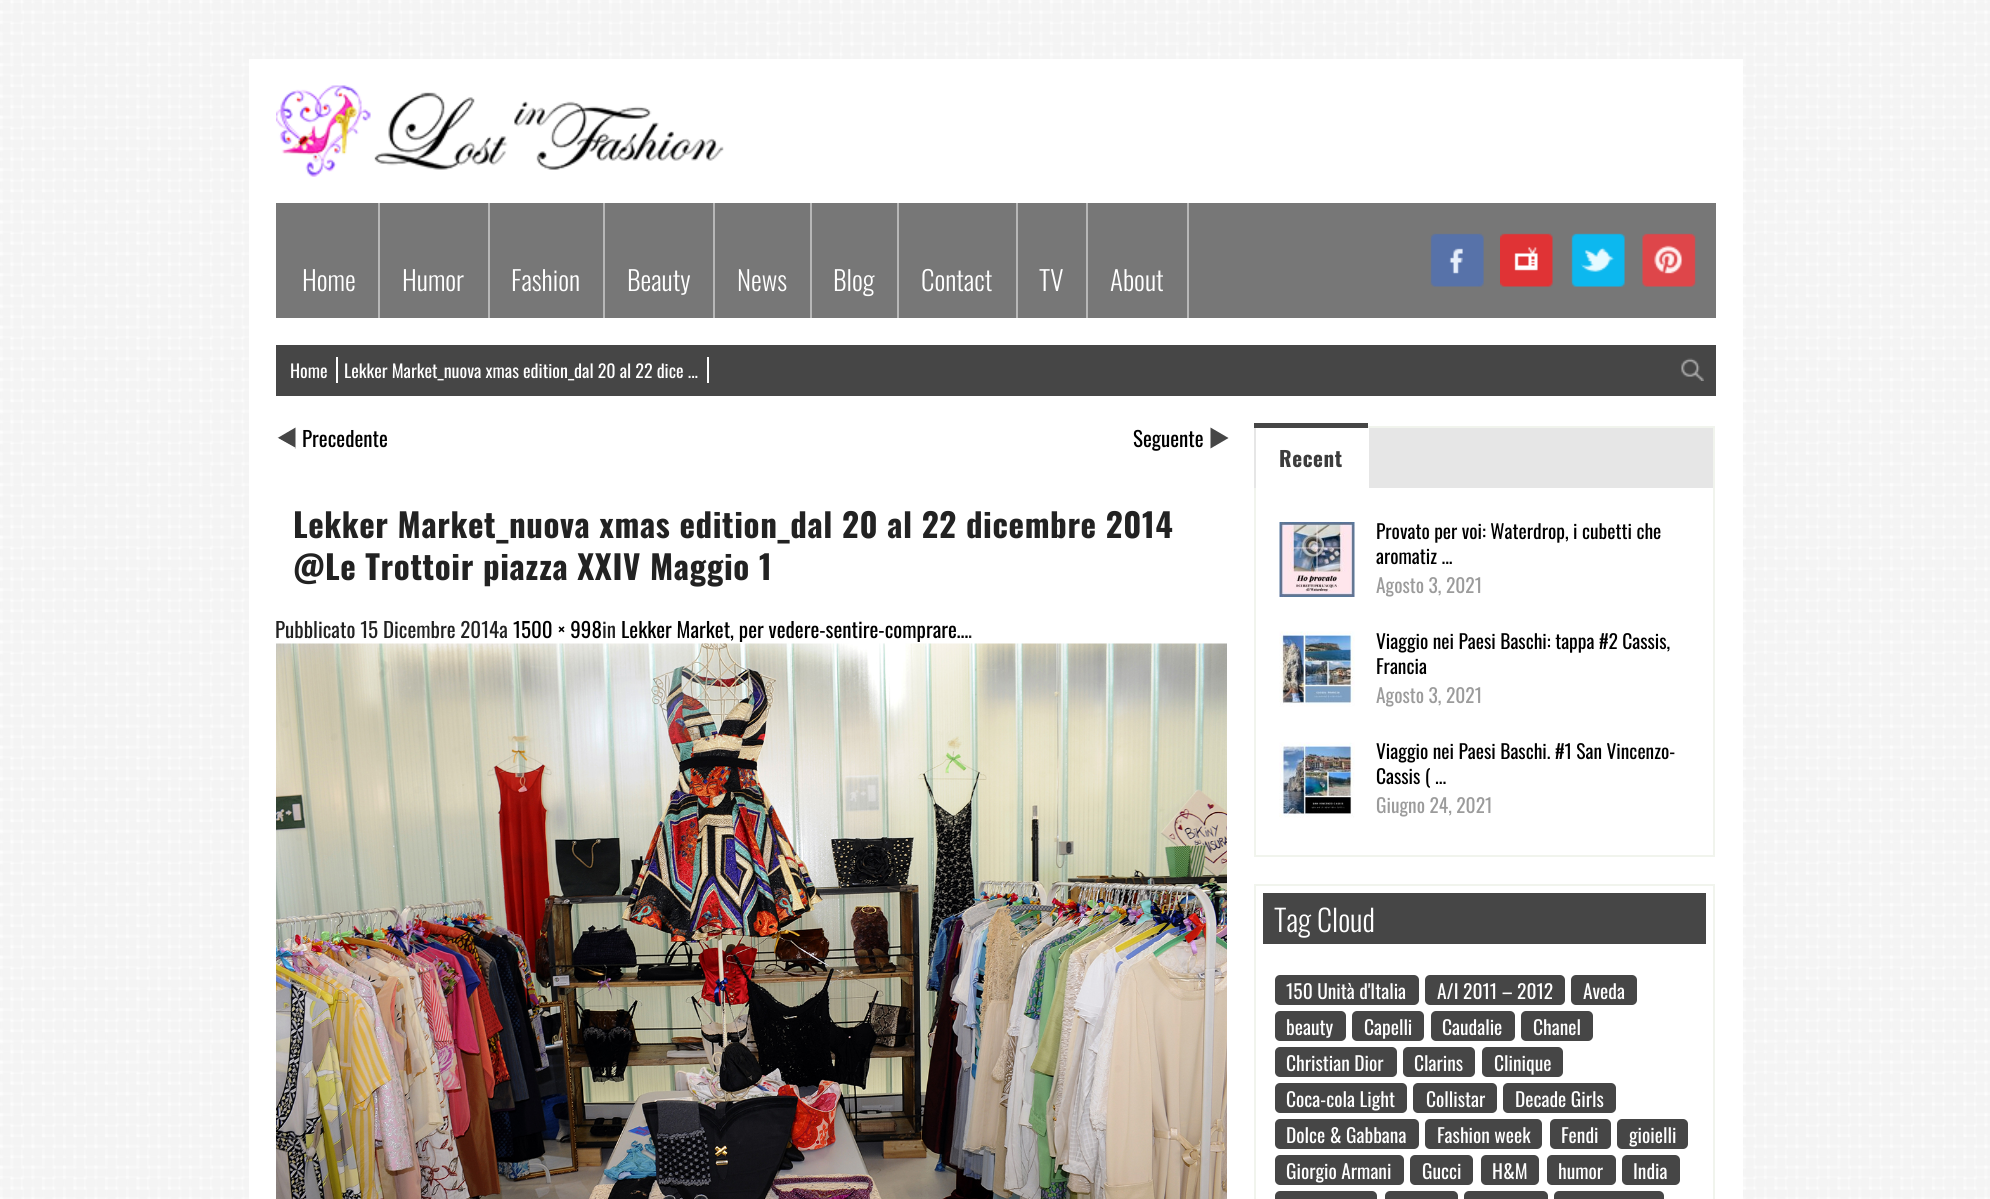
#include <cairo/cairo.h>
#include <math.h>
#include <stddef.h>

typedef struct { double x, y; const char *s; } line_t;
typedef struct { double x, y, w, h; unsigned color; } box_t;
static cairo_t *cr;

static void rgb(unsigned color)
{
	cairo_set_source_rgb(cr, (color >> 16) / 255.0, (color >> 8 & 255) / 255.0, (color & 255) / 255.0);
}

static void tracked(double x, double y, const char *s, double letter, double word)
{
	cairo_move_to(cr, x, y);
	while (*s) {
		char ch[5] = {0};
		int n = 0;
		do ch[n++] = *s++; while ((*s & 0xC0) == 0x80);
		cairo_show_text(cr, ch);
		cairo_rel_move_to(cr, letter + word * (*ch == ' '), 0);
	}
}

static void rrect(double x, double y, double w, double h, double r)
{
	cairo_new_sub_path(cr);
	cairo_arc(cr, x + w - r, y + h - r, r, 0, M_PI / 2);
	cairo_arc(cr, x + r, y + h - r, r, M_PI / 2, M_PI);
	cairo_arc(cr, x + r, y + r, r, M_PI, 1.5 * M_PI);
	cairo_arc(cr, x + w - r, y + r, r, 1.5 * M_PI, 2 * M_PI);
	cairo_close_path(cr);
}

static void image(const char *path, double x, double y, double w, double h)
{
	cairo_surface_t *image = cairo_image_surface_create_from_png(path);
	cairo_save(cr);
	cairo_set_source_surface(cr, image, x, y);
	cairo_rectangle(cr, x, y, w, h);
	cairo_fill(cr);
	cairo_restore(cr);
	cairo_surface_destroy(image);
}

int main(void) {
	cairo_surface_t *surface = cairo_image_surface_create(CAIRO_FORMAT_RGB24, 1990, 1199);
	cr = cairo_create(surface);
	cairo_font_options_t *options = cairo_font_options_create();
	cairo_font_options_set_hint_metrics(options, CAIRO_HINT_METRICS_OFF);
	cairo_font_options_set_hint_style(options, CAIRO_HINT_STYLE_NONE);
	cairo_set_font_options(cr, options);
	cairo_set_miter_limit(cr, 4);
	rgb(0xffffff);
	cairo_paint(cr);
	image("img/1.png", 0, 0, 1990, 1199);
	rgb(0xffffff);
	cairo_rectangle(cr, 249, 59, 1494, 1140);
	cairo_fill(cr);
	image("img/2.png", 276, 85, 448, 92);
	{
		static const box_t items[] = {
			{276, 203, 1440, 115, 0x777777},
			{378, 203, 2, 115, 0xb7b7b7},
			{488, 203, 2, 115, 0xb7b7b7},
			{603, 203, 2, 115, 0xb7b7b7},
			{713, 203, 2, 115, 0xb7b7b7},
			{810, 203, 2, 115, 0xb7b7b7},
			{897, 203, 2, 115, 0xb7b7b7},
			{1016, 203, 2, 115, 0xb7b7b7},
			{1086, 203, 2, 115, 0xb7b7b7},
			{1187, 203, 2, 115, 0xb7b7b7},
		};
		for (size_t i = 0; i < sizeof items / sizeof *items; i++) {
			rgb(items[i].color);
			cairo_rectangle(cr, items[i].x, items[i].y, items[i].w, items[i].h);
			cairo_fill(cr);
		}
	}
	image("img/3.png", 1430, 233, 54, 54);
	image("img/4.png", 1500, 233, 53, 54);
	image("img/5.png", 1571, 233, 54, 54);
	image("img/6.png", 1642, 233, 54, 54);
	{
		static const box_t items[] = {
			{276, 345, 1440, 51, 0x464646},
			{336, 357, 2, 26, 0xffffff},
			{707, 357, 2, 26, 0xffffff},
		};
		for (size_t i = 0; i < sizeof items / sizeof *items; i++) {
			rgb(items[i].color);
			cairo_rectangle(cr, items[i].x, items[i].y, items[i].w, items[i].h);
			cairo_fill(cr);
		}
	}
	image("img/7.png", 1681, 358, 23, 23);
	rgb(0x464646);
	cairo_new_path(cr);
	cairo_move_to(cr, 295.5, 427.5);
	cairo_line_to(cr, 295.5, 448.5);
	cairo_line_to(cr, 277.5, 438);
	cairo_close_path(cr);
	cairo_fill(cr);
	cairo_save(cr);
	cairo_rectangle(cr, 276, 423, 960, 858);
	cairo_clip(cr);
	rgb(0xffffff);
	cairo_new_path(cr);
	cairo_move_to(cr, 296, 448);
	cairo_line_to(cr, 244, 448);
	cairo_line_to(cr, 255, 438);
	cairo_line_to(cr, 278, 438);
	cairo_close_path(cr);
	cairo_fill(cr);
	cairo_restore(cr);
	cairo_new_path(cr);
	cairo_move_to(cr, 1210.5, 448.5);
	cairo_line_to(cr, 1210.5, 427.5);
	cairo_line_to(cr, 1228.5, 438);
	cairo_close_path(cr);
	cairo_fill(cr);
	image("img/8.png", 276, 643, 951, 556);
	cairo_rectangle(cr, 1255, 427, 459, 429);
	rgb(0xf1f4ed);
	cairo_stroke(cr);
	{
		static const box_t items[] = {
			{1369, 428, 344, 60, 0xe6e6e6},
			{1254, 423, 114, 5, 0x464646},
			{1254, 428, 2, 60, 0xe6e6e6},
		};
		for (size_t i = 0; i < sizeof items / sizeof *items; i++) {
			rgb(items[i].color);
			cairo_rectangle(cr, items[i].x, items[i].y, items[i].w, items[i].h);
			cairo_fill(cr);
		}
	}
	image("img/9.png", 1279, 522, 76, 75);
	image("img/10.png", 1279, 631, 76, 76);
	image("img/11.png", 1279, 742, 76, 76);
	{
		static const box_t items[] = {
			{1254, 884, 461, 2, 0xf1f4ed},
			{1713, 884, 2, 315, 0xf1f4ed},
			{1254, 884, 2, 315, 0xf1f4ed},
			{1263, 893, 443, 51, 0x464646},
		};
		for (size_t i = 0; i < sizeof items / sizeof *items; i++) {
			rgb(items[i].color);
			cairo_rectangle(cr, items[i].x, items[i].y, items[i].w, items[i].h);
			cairo_fill(cr);
		}
	}
	rrect(1275, 975, 144, 30, 5);
	cairo_fill(cr);
	rrect(1425, 975, 140, 30, 5);
	cairo_fill(cr);
	rrect(1571, 975, 66, 30, 5);
	cairo_fill(cr);
	rrect(1275, 1011, 71, 30, 5);
	cairo_fill(cr);
	rrect(1352, 1011, 72, 30, 5);
	cairo_fill(cr);
	rrect(1431, 1011, 84, 30, 5);
	cairo_fill(cr);
	rrect(1521, 1011, 72, 30, 5);
	cairo_fill(cr);
	rrect(1275, 1047, 122, 30, 5);
	cairo_fill(cr);
	rrect(1403, 1047, 72, 30, 5);
	cairo_fill(cr);
	rrect(1482, 1047, 81, 30, 5);
	cairo_fill(cr);
	rrect(1275, 1083, 132, 30, 5);
	cairo_fill(cr);
	rrect(1413, 1083, 84, 30, 5);
	cairo_fill(cr);
	rrect(1503, 1083, 113, 30, 5);
	cairo_fill(cr);
	rrect(1275, 1119, 144, 30, 5);
	cairo_fill(cr);
	rrect(1425, 1119, 117, 30, 5);
	cairo_fill(cr);
	rrect(1550, 1119, 61, 30, 5);
	cairo_fill(cr);
	rrect(1617, 1119, 71, 30, 5);
	cairo_fill(cr);
	rrect(1275, 1155, 129, 30, 5);
	cairo_fill(cr);
	rrect(1410, 1155, 63, 30, 5);
	cairo_fill(cr);
	rrect(1481, 1155, 58, 30, 5);
	cairo_fill(cr);
	rrect(1547, 1155, 69, 30, 5);
	cairo_fill(cr);
	rrect(1622, 1155, 58, 30, 5);
	cairo_fill(cr);
	rrect(1275, 1191, 102, 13, 5);
	cairo_fill(cr);
	rrect(1385, 1191, 73, 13, 5);
	cairo_fill(cr);
	rrect(1464, 1191, 84, 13, 5);
	cairo_fill(cr);
	rrect(1554, 1191, 110, 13, 5);
	cairo_fill(cr);
	cairo_select_font_face(cr, "Oswald Light", CAIRO_FONT_SLANT_NORMAL, CAIRO_FONT_WEIGHT_NORMAL);
	cairo_set_font_size(cr, 27);
	rgb(0xffffff);
	{
		static const line_t items[] = {
			{302, 291, "Home"},
			{402, 291, "Humor"},
			{511, 291, "Fashion"},
			{627, 291, "Beauty"},
			{737, 291, "News"},
			{833, 291, "Blog"},
			{921, 291, "Contact"},
			{1039, 291, "TV"},
			{1110, 291, "About"},
		};
		for (size_t i = 0; i < sizeof items / sizeof *items; i++) {
			cairo_move_to(cr, items[i].x, items[i].y);
			cairo_show_text(cr, items[i].s);
		}
	}
	cairo_select_font_face(cr, "Oswald", CAIRO_FONT_SLANT_NORMAL, CAIRO_FONT_WEIGHT_NORMAL);
	cairo_set_font_size(cr, 18);
	cairo_move_to(cr, 290, 378);
	cairo_show_text(cr, "Home");
	cairo_move_to(cr, 344, 378);
	cairo_show_text(cr, "Lekker Market_nuova xmas edition_dal 20 al 22 dice ...");
	cairo_set_font_size(cr, 21);
	rgb(0x000000);
	cairo_move_to(cr, 302, 447);
	cairo_show_text(cr, "Precedente");
	cairo_move_to(cr, 1133, 447);
	cairo_show_text(cr, "Seguente");
	cairo_select_font_face(cr, "Oswald", CAIRO_FONT_SLANT_NORMAL, CAIRO_FONT_WEIGHT_BOLD);
	cairo_set_font_size(cr, 33);
	rgb(0x222222);
	tracked(293, 538, "Lekker Market_nuova xmas edition_dal 20 al 22 dicembre 2014", 0.6, 0);
	tracked(293, 580, "@Le Trottoir piazza XXIV Maggio 1", 0.6, 0);
	cairo_select_font_face(cr, "Oswald", CAIRO_FONT_SLANT_NORMAL, CAIRO_FONT_WEIGHT_NORMAL);
	cairo_set_font_size(cr, 21);
	cairo_move_to(cr, 275, 638);
	cairo_show_text(cr, "Pubblicato 15 Dicembre 2014a");
	rgb(0x000000);
	cairo_move_to(cr, 513, 638);
	cairo_show_text(cr, "1500 × 998");
	rgb(0x222222);
	cairo_move_to(cr, 602, 638);
	cairo_show_text(cr, "in");
	rgb(0x000000);
	cairo_move_to(cr, 621, 638);
	cairo_show_text(cr, "Lekker Market, per vedere-sentire-comprare…");
	rgb(0x222222);
	cairo_move_to(cr, 968, 638);
	cairo_show_text(cr, ".");
	cairo_select_font_face(cr, "Oswald", CAIRO_FONT_SLANT_NORMAL, CAIRO_FONT_WEIGHT_BOLD);
	rgb(0x3c3c3c);
	tracked(1279, 467, "Recent", 0.6, 0);
	cairo_select_font_face(cr, "Oswald", CAIRO_FONT_SLANT_NORMAL, CAIRO_FONT_WEIGHT_NORMAL);
	cairo_set_font_size(cr, 19.5);
	rgb(0x000000);
	cairo_move_to(cr, 1376, 539);
	cairo_show_text(cr, "Provato per voi: Waterdrop, i cubetti che");
	cairo_move_to(cr, 1376, 564);
	cairo_show_text(cr, "aromatiz ...");
	rgb(0x9b9b9b);
	cairo_move_to(cr, 1376, 593);
	cairo_show_text(cr, "Agosto 3, 2021");
	rgb(0x000000);
	cairo_move_to(cr, 1376, 649);
	cairo_show_text(cr, "Viaggio nei Paesi Baschi: tappa #2 Cassis,");
	cairo_move_to(cr, 1376, 674);
	cairo_show_text(cr, "Francia");
	rgb(0x9b9b9b);
	cairo_move_to(cr, 1376, 703);
	cairo_show_text(cr, "Agosto 3, 2021");
	rgb(0x000000);
	cairo_move_to(cr, 1376, 759);
	cairo_show_text(cr, "Viaggio nei Paesi Baschi. #1 San Vincenzo-");
	cairo_move_to(cr, 1376, 784);
	cairo_show_text(cr, "Cassis ( ...");
	rgb(0x9b9b9b);
	cairo_move_to(cr, 1376, 813);
	cairo_show_text(cr, "Giugno 24, 2021");
	cairo_select_font_face(cr, "Oswald Light", CAIRO_FONT_SLANT_NORMAL, CAIRO_FONT_WEIGHT_NORMAL);
	cairo_set_font_size(cr, 30);
	rgb(0xffffff);
	cairo_move_to(cr, 1274, 932);
	cairo_show_text(cr, "Tag Cloud");
	cairo_select_font_face(cr, "Oswald", CAIRO_FONT_SLANT_NORMAL, CAIRO_FONT_WEIGHT_NORMAL);
	cairo_set_font_size(cr, 19.5);
	{
		static const line_t items[] = {
			{1286, 999, "150 Unità d'Italia"},
			{1437, 999, "A/I 2011 – 2012"},
			{1583, 999, "Aveda"},
			{1286, 1035, "beauty"},
			{1364, 1035, "Capelli"},
			{1442, 1035, "Caudalie"},
			{1533, 1035, "Chanel"},
			{1286, 1071, "Christian Dior"},
			{1414, 1071, "Clarins"},
			{1494, 1071, "Clinique"},
			{1286, 1107, "Coca-cola Light"},
			{1426, 1107, "Collistar"},
			{1515, 1107, "Decade Girls"},
			{1286, 1143, "Dolce & Gabbana"},
			{1437, 1143, "Fashion week"},
			{1561, 1143, "Fendi"},
			{1629, 1143, "gioielli"},
			{1286, 1179, "Giorgio Armani"},
			{1422, 1179, "Gucci"},
			{1492, 1179, "H&M"},
			{1558, 1179, "humor"},
			{1633, 1179, "India"},
		};
		for (size_t i = 0; i < sizeof items / sizeof *items; i++) {
			cairo_move_to(cr, items[i].x, items[i].y);
			cairo_show_text(cr, items[i].s);
		}
	}
	cairo_surface_write_to_png(surface, "page.png");
	cairo_font_options_destroy(options);
	cairo_destroy(cr);
	cairo_surface_destroy(surface);
	return 0;
}
